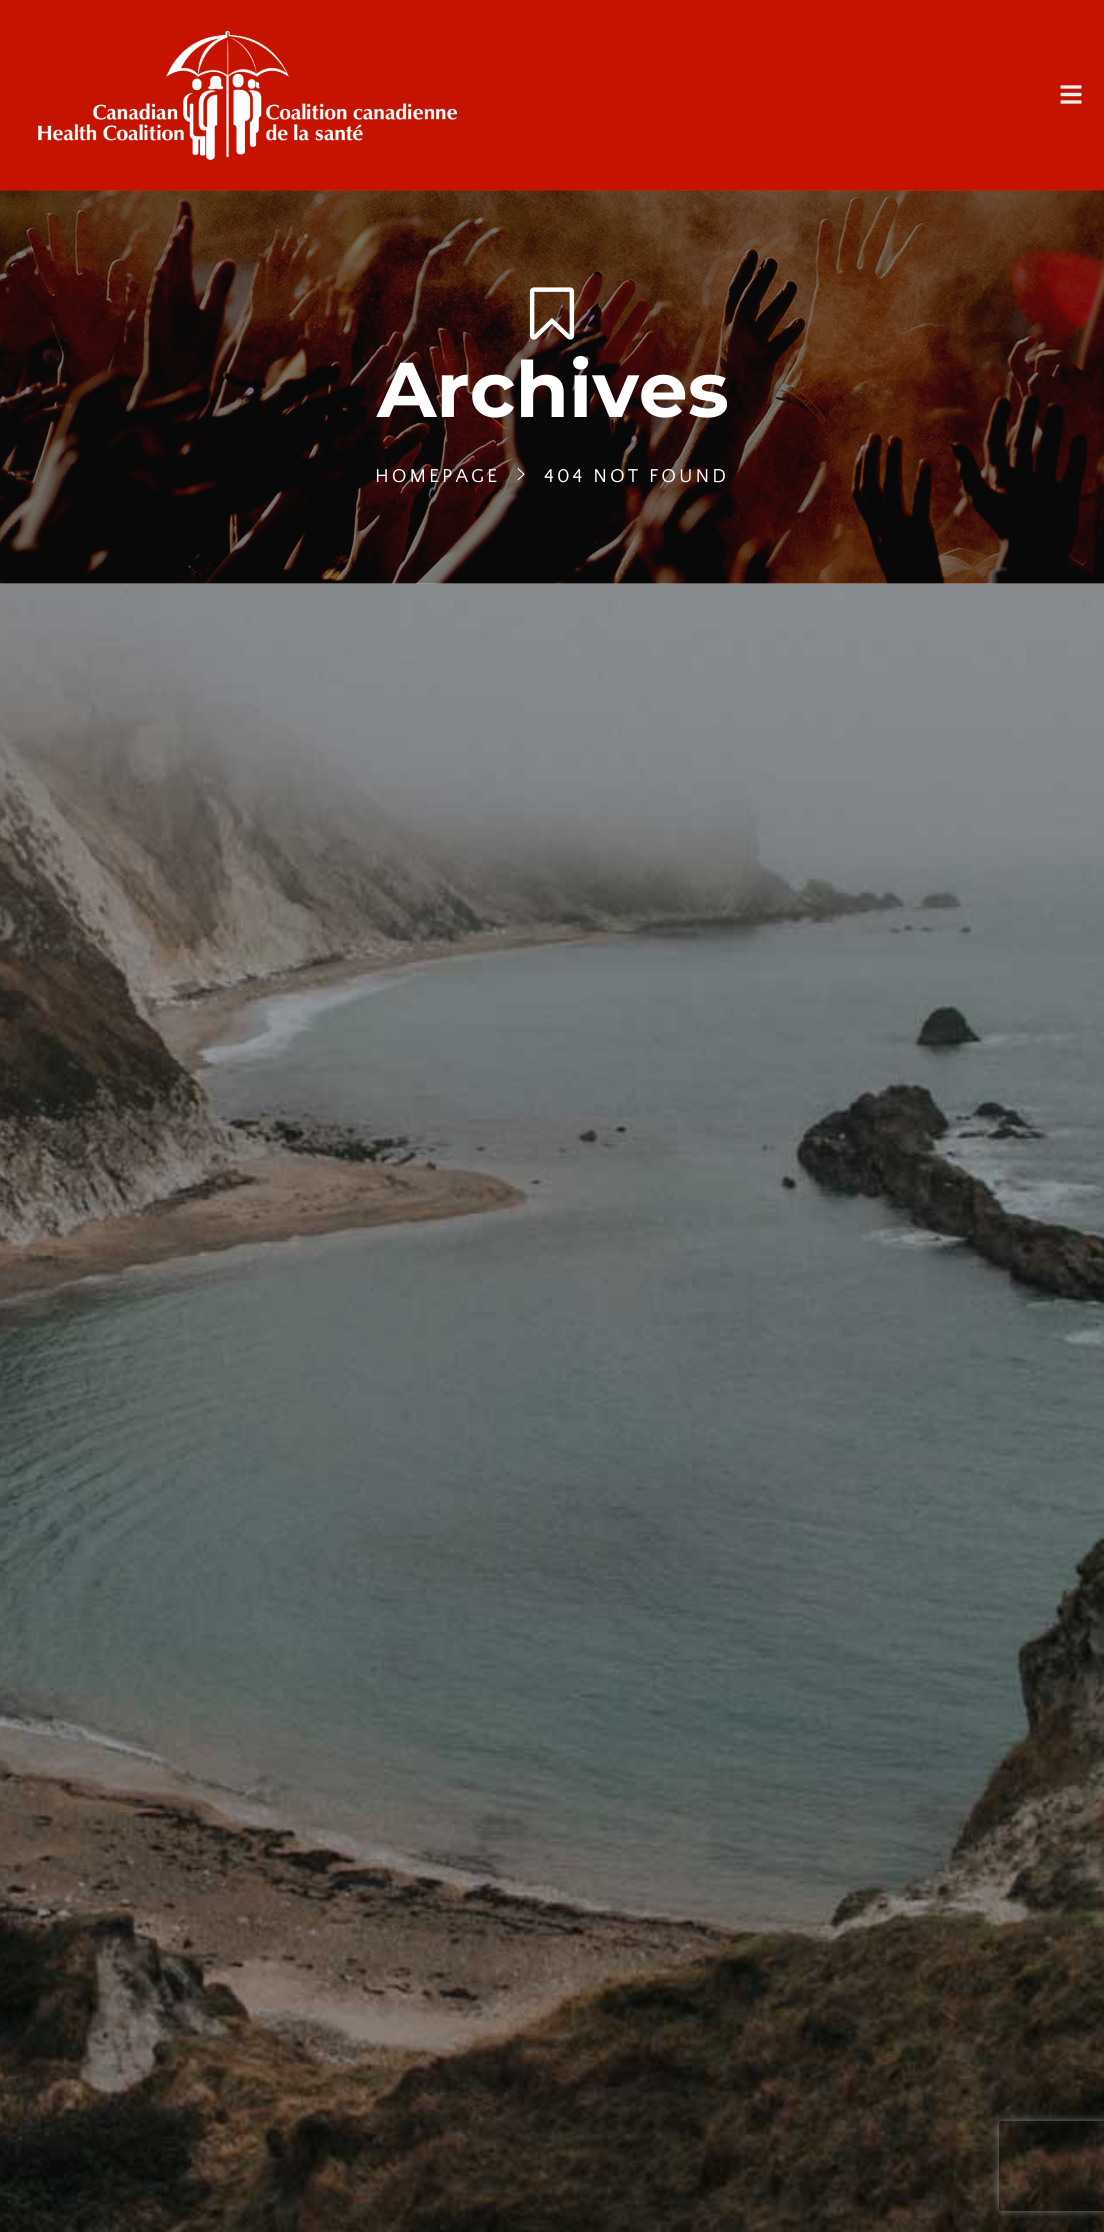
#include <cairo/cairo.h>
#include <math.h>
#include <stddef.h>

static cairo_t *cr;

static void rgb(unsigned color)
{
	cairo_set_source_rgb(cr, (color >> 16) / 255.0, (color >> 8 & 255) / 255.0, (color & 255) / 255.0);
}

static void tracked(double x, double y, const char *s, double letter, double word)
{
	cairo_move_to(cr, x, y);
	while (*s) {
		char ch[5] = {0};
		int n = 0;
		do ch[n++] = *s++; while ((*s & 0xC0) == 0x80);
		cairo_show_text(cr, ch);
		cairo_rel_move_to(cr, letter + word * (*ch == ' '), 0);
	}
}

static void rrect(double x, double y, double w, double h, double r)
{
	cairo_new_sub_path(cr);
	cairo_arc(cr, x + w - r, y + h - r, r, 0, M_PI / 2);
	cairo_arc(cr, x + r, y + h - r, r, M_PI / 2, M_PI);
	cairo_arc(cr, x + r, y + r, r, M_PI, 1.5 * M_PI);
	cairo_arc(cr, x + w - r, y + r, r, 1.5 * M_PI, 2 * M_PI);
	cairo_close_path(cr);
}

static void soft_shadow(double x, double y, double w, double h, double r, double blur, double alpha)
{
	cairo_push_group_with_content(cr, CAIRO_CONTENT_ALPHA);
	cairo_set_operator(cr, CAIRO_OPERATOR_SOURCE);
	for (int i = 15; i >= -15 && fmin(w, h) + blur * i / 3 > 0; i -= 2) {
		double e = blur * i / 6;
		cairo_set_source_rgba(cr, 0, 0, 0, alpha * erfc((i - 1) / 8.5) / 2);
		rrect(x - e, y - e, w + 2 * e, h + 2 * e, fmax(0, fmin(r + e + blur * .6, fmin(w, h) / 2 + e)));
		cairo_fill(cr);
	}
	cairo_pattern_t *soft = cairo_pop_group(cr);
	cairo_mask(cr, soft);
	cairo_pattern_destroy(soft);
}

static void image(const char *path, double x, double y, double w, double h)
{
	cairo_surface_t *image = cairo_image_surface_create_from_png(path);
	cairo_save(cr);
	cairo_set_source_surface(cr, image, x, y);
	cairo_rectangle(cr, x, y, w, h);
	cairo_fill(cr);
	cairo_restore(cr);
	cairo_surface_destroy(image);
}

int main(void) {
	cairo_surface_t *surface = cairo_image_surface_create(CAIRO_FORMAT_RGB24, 1104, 2232);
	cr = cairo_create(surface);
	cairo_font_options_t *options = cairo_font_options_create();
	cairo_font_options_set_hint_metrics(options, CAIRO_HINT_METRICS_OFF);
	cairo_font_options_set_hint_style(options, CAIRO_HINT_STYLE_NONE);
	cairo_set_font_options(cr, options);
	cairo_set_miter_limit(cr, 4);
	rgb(0xffffff);
	cairo_paint(cr);
	image("img/1.png", 0, 584, 1104, 1648);
	rgb(0xc51300);
	cairo_rectangle(cr, 0, 0, 1104, 191);
	cairo_fill(cr);
	image("img/2.png", 38, 30, 420, 130);
	image("img/3.png", 1060, 85, 22, 19);
	rgb(0xeaeaeb);
	cairo_rectangle(cr, 0, 583, 1104, 1);
	cairo_fill(cr);
	image("img/4.png", 0, 190, 1104, 394);
	cairo_set_source_rgba(cr, 0.11, 0.11, 0.11, 0.26);
	cairo_rectangle(cr, 0, 191, 1104, 393);
	cairo_fill(cr);
	image("img/5.png", 529, 287, 46, 53);
	image("img/6.png", 517, 468, 8, 13);
	cairo_save(cr);
	cairo_set_fill_rule(cr, CAIRO_FILL_RULE_EVEN_ODD);
	cairo_new_path(cr);
	cairo_move_to(cr, 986, 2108);
	cairo_line_to(cr, 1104, 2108);
	cairo_line_to(cr, 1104, 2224);
	cairo_line_to(cr, 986, 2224);
	cairo_close_path(cr);
	cairo_move_to(cr, 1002, 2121);
	cairo_line_to(cr, 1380, 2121);
	cairo_curve_to(cr, 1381.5, 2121, 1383, 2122.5, 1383, 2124);
	cairo_line_to(cr, 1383, 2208);
	cairo_curve_to(cr, 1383, 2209.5, 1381.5, 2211, 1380, 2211);
	cairo_line_to(cr, 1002, 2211);
	cairo_curve_to(cr, 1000.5, 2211, 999, 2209.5, 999, 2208);
	cairo_line_to(cr, 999, 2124);
	cairo_curve_to(cr, 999, 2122.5, 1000.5, 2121, 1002, 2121);
	cairo_close_path(cr);
	cairo_clip(cr);
	rgb(0x808080);
	soft_shadow(999, 2121, 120, 90, 3, 4, 1);
	cairo_restore(cr);
	cairo_select_font_face(cr, "Montserrat Thin", CAIRO_FONT_SLANT_NORMAL, CAIRO_FONT_WEIGHT_NORMAL);
	cairo_set_font_size(cr, 77.5);
	rgb(0xffffff);
	cairo_move_to(cr, 377, 417);
	cairo_show_text(cr, "Archives");
	cairo_select_font_face(cr, "Quattrocento Sans", CAIRO_FONT_SLANT_NORMAL, CAIRO_FONT_WEIGHT_NORMAL);
	cairo_set_font_size(cr, 19.5);
	tracked(375, 482, "HOMEPAGE", 3, 0);
	tracked(544, 482, "404 NOT FOUND", 3, 0);
	cairo_surface_write_to_png(surface, "page.png");
	cairo_font_options_destroy(options);
	cairo_destroy(cr);
	cairo_surface_destroy(surface);
	return 0;
}
